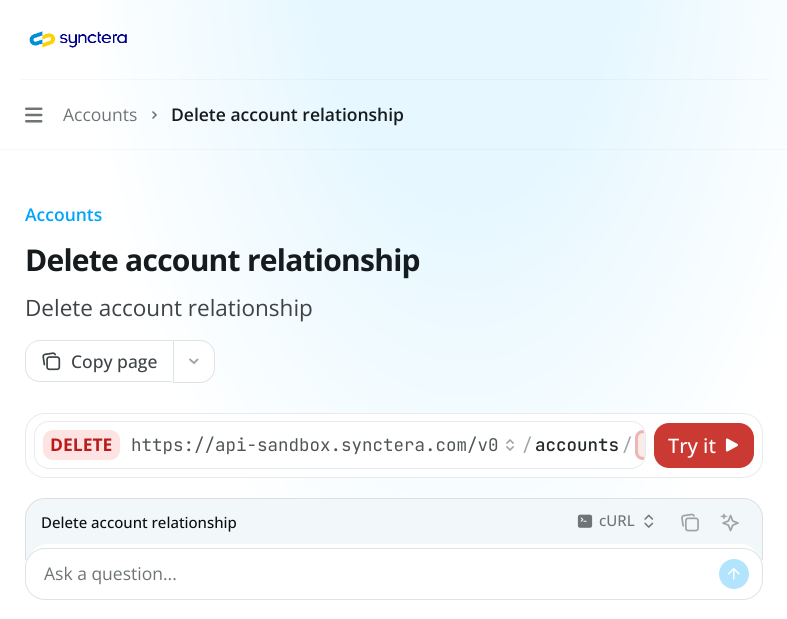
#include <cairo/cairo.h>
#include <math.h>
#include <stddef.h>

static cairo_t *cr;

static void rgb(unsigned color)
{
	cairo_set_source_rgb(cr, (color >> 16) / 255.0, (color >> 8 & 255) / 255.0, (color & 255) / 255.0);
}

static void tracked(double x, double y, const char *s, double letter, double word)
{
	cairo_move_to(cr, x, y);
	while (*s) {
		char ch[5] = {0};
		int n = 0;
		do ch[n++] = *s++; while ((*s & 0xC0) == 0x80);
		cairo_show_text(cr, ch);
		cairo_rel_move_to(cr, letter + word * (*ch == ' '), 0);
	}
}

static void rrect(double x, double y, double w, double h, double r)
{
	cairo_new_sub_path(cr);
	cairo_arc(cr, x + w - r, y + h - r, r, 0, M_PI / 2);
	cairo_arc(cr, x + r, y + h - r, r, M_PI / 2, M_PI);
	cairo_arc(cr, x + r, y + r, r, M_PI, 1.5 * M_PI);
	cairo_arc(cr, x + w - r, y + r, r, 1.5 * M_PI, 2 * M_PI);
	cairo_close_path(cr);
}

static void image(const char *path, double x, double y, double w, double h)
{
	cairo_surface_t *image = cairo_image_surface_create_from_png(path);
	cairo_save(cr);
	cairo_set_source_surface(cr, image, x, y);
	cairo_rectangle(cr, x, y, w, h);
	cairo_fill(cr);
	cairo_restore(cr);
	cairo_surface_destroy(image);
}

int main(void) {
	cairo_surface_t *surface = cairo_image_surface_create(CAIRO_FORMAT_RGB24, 787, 619);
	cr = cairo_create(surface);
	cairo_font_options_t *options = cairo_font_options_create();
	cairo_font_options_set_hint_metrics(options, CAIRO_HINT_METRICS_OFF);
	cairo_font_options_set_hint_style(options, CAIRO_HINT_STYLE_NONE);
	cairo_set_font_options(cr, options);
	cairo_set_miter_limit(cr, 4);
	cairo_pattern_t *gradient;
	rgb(0xffffff);
	cairo_paint(cr);
	gradient = cairo_pattern_create_radial(0, 0, 0, 0, 0, 1);
	cairo_pattern_set_matrix(gradient, &(cairo_matrix_t){1.0 / 391, 0, 0, 1.0 / 730, -1.0 * 465 / 391, -1.0 * -92 / 730});
	cairo_pattern_add_color_stop_rgba(gradient, 0.39, 0.902, 0.969, 1, 1);
	cairo_pattern_add_color_stop_rgba(gradient, 1, 1, 1, 1, 1);
	cairo_set_source(cr, gradient);
	cairo_pattern_destroy(gradient);
	cairo_rectangle(cr, 102, 0, 685, 560);
	cairo_fill(cr);
	image("img/1.png", 29, 31, 98, 17);
	image("img/2.png", 25, 107, 18, 16);
	cairo_new_path(cr);
	cairo_move_to(cr, 153, 112);
	cairo_line_to(cr, 156, 115);
	cairo_line_to(cr, 153, 118);
	rgb(0x6f7577);
	cairo_set_line_width(cr, 1.6);
	cairo_set_line_cap(cr, CAIRO_LINE_CAP_ROUND);
	cairo_stroke(cr);
	gradient = cairo_pattern_create_radial(0, 0, 0, 0, 0, 1);
	cairo_pattern_set_matrix(gradient, &(cairo_matrix_t){1.0 / 391, 0, 0, 1.0 / 730, -1.0 * 465 / 391, -1.0 * -92 / 730});
	cairo_pattern_add_color_stop_rgba(gradient, 0.39, 0.878, 0.941, 0.973, 1);
	cairo_pattern_add_color_stop_rgba(gradient, 1, 0.973, 0.973, 0.973, 1);
	cairo_set_source(cr, gradient);
	cairo_pattern_destroy(gradient);
	cairo_rectangle(cr, 20, 79, 748, 1);
	cairo_fill(cr);
	cairo_rectangle(cr, 0, 149, 787, 1);
	cairo_fill(cr);
	rgb(0xdee3e6);
	cairo_set_fill_rule(cr, CAIRO_FILL_RULE_EVEN_ODD);
	cairo_new_path(cr);
	cairo_move_to(cr, 40, 340);
	cairo_line_to(cr, 172, 340);
	cairo_line_to(cr, 172, 382);
	cairo_line_to(cr, 40, 382);
	cairo_curve_to(cr, 32, 382, 25, 376, 25, 368);
	cairo_line_to(cr, 25, 355);
	cairo_curve_to(cr, 25, 347, 32, 340, 40, 340);
	cairo_close_path(cr);
	cairo_move_to(cr, 40, 341);
	cairo_line_to(cr, 172, 341);
	cairo_line_to(cr, 172, 381);
	cairo_line_to(cr, 40, 381);
	cairo_curve_to(cr, 32, 381, 26, 375, 26, 368);
	cairo_line_to(cr, 26, 355);
	cairo_curve_to(cr, 26, 347, 32, 341, 40, 341);
	cairo_close_path(cr);
	cairo_fill(cr);
	image("img/3.png", 42, 352, 19, 19);
	rgb(0xffffff);
	cairo_new_path(cr);
	cairo_move_to(cr, 173.5, 340.5);
	cairo_line_to(cr, 200, 340.5);
	cairo_curve_to(cr, 208, 340.5, 214.5, 347, 214.5, 355);
	cairo_line_to(cr, 214.5, 368);
	cairo_curve_to(cr, 214.5, 376, 208, 382.5, 200, 382.5);
	cairo_line_to(cr, 173.5, 382.5);
	cairo_close_path(cr);
	cairo_fill_preserve(cr);
	rgb(0xdee3e6);
	cairo_set_line_width(cr, 1);
	cairo_set_line_cap(cr, CAIRO_LINE_CAP_BUTT);
	cairo_stroke(cr);
	cairo_new_path(cr);
	cairo_move_to(cr, 197.5, 359.5);
	cairo_line_to(cr, 194, 363);
	cairo_line_to(cr, 190, 359.5);
	rgb(0x9ea3a6);
	cairo_set_line_width(cr, 1.9);
	cairo_set_line_cap(cr, CAIRO_LINE_CAP_ROUND);
	cairo_stroke(cr);
	rgb(0xffffff);
	rrect(25.5, 413.5, 737, 64, 19.5);
	cairo_fill_preserve(cr);
	rgb(0xe8ebee);
	cairo_set_line_width(cr, 1);
	cairo_set_line_cap(cr, CAIRO_LINE_CAP_BUTT);
	cairo_stroke(cr);
	rrect(34.5, 421.5, 611, 47, 14.5);
	cairo_stroke(cr);
	rgb(0xfee3e3);
	rrect(43, 430, 77, 30, 10);
	cairo_fill(cr);
	image("img/4.png", 506, 439, 8, 12);
	cairo_save(cr);
	cairo_set_fill_rule(cr, CAIRO_FILL_RULE_WINDING);
	rrect(35, 423, 610, 45, 14);
	cairo_clip(cr);
	cairo_set_source_rgba(cr, 0.796, 0.227, 0.196, 0.1);
	cairo_new_path(cr);
	cairo_move_to(cr, 643, 430);
	cairo_line_to(cr, 645, 430);
	cairo_line_to(cr, 645, 460);
	cairo_line_to(cr, 643, 460);
	cairo_curve_to(cr, 638.5, 460, 635, 456.5, 635, 452);
	cairo_line_to(cr, 635, 438);
	cairo_curve_to(cr, 635, 433.5, 638.5, 430, 643, 430);
	cairo_close_path(cr);
	cairo_fill(cr);
	cairo_restore(cr);
	cairo_set_source_rgba(cr, 0.796, 0.227, 0.196, 0.3);
	cairo_set_fill_rule(cr, CAIRO_FILL_RULE_WINDING);
	cairo_new_path(cr);
	cairo_move_to(cr, 643, 430);
	cairo_curve_to(cr, 638.5, 430, 635, 433.5, 635, 438);
	cairo_line_to(cr, 635, 452);
	cairo_curve_to(cr, 635, 456.5, 638.5, 460, 643, 460);
	cairo_line_to(cr, 643.5, 460);
	cairo_line_to(cr, 644.5, 457);
	cairo_curve_to(cr, 636.5, 457, 638, 451.5, 638, 445);
	cairo_curve_to(cr, 638, 439, 636.5, 433, 644.5, 433);
	cairo_close_path(cr);
	cairo_fill(cr);
	rgb(0xcb3a32);
	rrect(654, 423, 100, 45, 15);
	cairo_fill(cr);
	image("img/5.png", 725, 438, 13, 14);
	rgb(0xf2f7fa);
	rrect(25, 498, 738, 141, 20);
	cairo_fill(cr);
	rrect(25.5, 498.5, 737, 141, 19.5);
	cairo_set_source_rgba(cr, 0.039, 0.059, 0.067, 0.1);
	cairo_stroke(cr);
	image("img/6.png", 577, 514, 16, 14);
	image("img/7.png", 644, 514, 10, 14);
	image("img/8.png", 681, 513, 18, 19);
	image("img/9.png", 720, 513, 19, 19);
	rgb(0xffffff);
	rrect(29, 544, 730, 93, 18);
	cairo_fill(cr);
	cairo_rectangle(cr, 25, 560, 738, 59);
	cairo_fill(cr);
	cairo_set_source_rgba(cr, 1, 1, 1, 0.9);
	rrect(25.5, 548.5, 737, 51, 19.5);
	cairo_fill_preserve(cr);
	rgb(0xdee3e6);
	cairo_stroke(cr);
	rgb(0xb3e4fe);
	cairo_arc(cr, 734, 574, 15, 0, 2 * M_PI);
	cairo_fill(cr);
	image("img/10.png", 728, 567, 12, 13);
	cairo_select_font_face(cr, "Open Sans", CAIRO_FONT_SLANT_NORMAL, CAIRO_FONT_WEIGHT_NORMAL);
	cairo_set_font_size(cr, 17.5);
	rgb(0x6f7577);
	cairo_move_to(cr, 63, 121);
	cairo_show_text(cr, "Accounts");
	cairo_select_font_face(cr, "Open Sans SemiBold", CAIRO_FONT_SLANT_NORMAL, CAIRO_FONT_WEIGHT_NORMAL);
	rgb(0x161b1e);
	cairo_move_to(cr, 171, 121);
	cairo_show_text(cr, "Delete account relationship");
	rgb(0x00a5fb);
	cairo_move_to(cr, 25, 221);
	cairo_show_text(cr, "Accounts");
	cairo_select_font_face(cr, "Open Sans", CAIRO_FONT_SLANT_NORMAL, CAIRO_FONT_WEIGHT_BOLD);
	cairo_set_font_size(cr, 30);
	rgb(0x161b1e);
	tracked(25, 271, "Delete account relationship", -0.75, 0);
	cairo_select_font_face(cr, "Open Sans", CAIRO_FONT_SLANT_NORMAL, CAIRO_FONT_WEIGHT_NORMAL);
	cairo_set_font_size(cr, 22.5);
	rgb(0x3e4346);
	cairo_move_to(cr, 25, 316);
	cairo_show_text(cr, "Delete account relationship");
	cairo_select_font_face(cr, "Open Sans Medium", CAIRO_FONT_SLANT_NORMAL, CAIRO_FONT_WEIGHT_NORMAL);
	cairo_set_font_size(cr, 17.5);
	cairo_move_to(cr, 71, 368);
	cairo_show_text(cr, "Copy page");
	cairo_select_font_face(cr, "Open Sans", CAIRO_FONT_SLANT_NORMAL, CAIRO_FONT_WEIGHT_BOLD);
	rgb(0xb91c1c);
	cairo_move_to(cr, 50, 451);
	cairo_show_text(cr, "DELETE");
	cairo_select_font_face(cr, "JetBrains Mono", CAIRO_FONT_SLANT_NORMAL, CAIRO_FONT_WEIGHT_NORMAL);
	rgb(0x4f5557);
	cairo_move_to(cr, 131, 451);
	cairo_show_text(cr, "https://api-sandbox.synctera.com/v0");
	rgb(0x9ea3a6);
	cairo_move_to(cr, 522, 451);
	cairo_show_text(cr, "/");
	cairo_select_font_face(cr, "JetBrains Mono Medium", CAIRO_FONT_SLANT_NORMAL, CAIRO_FONT_WEIGHT_NORMAL);
	rgb(0x252a2d);
	cairo_move_to(cr, 535, 451);
	cairo_show_text(cr, "accounts");
	cairo_select_font_face(cr, "JetBrains Mono", CAIRO_FONT_SLANT_NORMAL, CAIRO_FONT_WEIGHT_NORMAL);
	rgb(0x9ea3a6);
	cairo_move_to(cr, 622, 451);
	cairo_show_text(cr, "/");
	cairo_select_font_face(cr, "Open Sans Medium", CAIRO_FONT_SLANT_NORMAL, CAIRO_FONT_WEIGHT_NORMAL);
	cairo_set_font_size(cr, 20);
	rgb(0xffffff);
	cairo_move_to(cr, 668, 453);
	cairo_show_text(cr, "Try it");
	cairo_set_font_size(cr, 15);
	rgb(0x0a0f11);
	cairo_move_to(cr, 41, 528);
	cairo_show_text(cr, "Delete account relationship");
	rgb(0x6f7577);
	cairo_move_to(cr, 599, 526);
	cairo_show_text(cr, "cURL");
	cairo_select_font_face(cr, "Open Sans", CAIRO_FONT_SLANT_NORMAL, CAIRO_FONT_WEIGHT_NORMAL);
	cairo_set_font_size(cr, 17.5);
	cairo_move_to(cr, 44, 580);
	cairo_show_text(cr, "Ask a question...");
	cairo_surface_write_to_png(surface, "page.png");
	cairo_font_options_destroy(options);
	cairo_destroy(cr);
	cairo_surface_destroy(surface);
	return 0;
}
